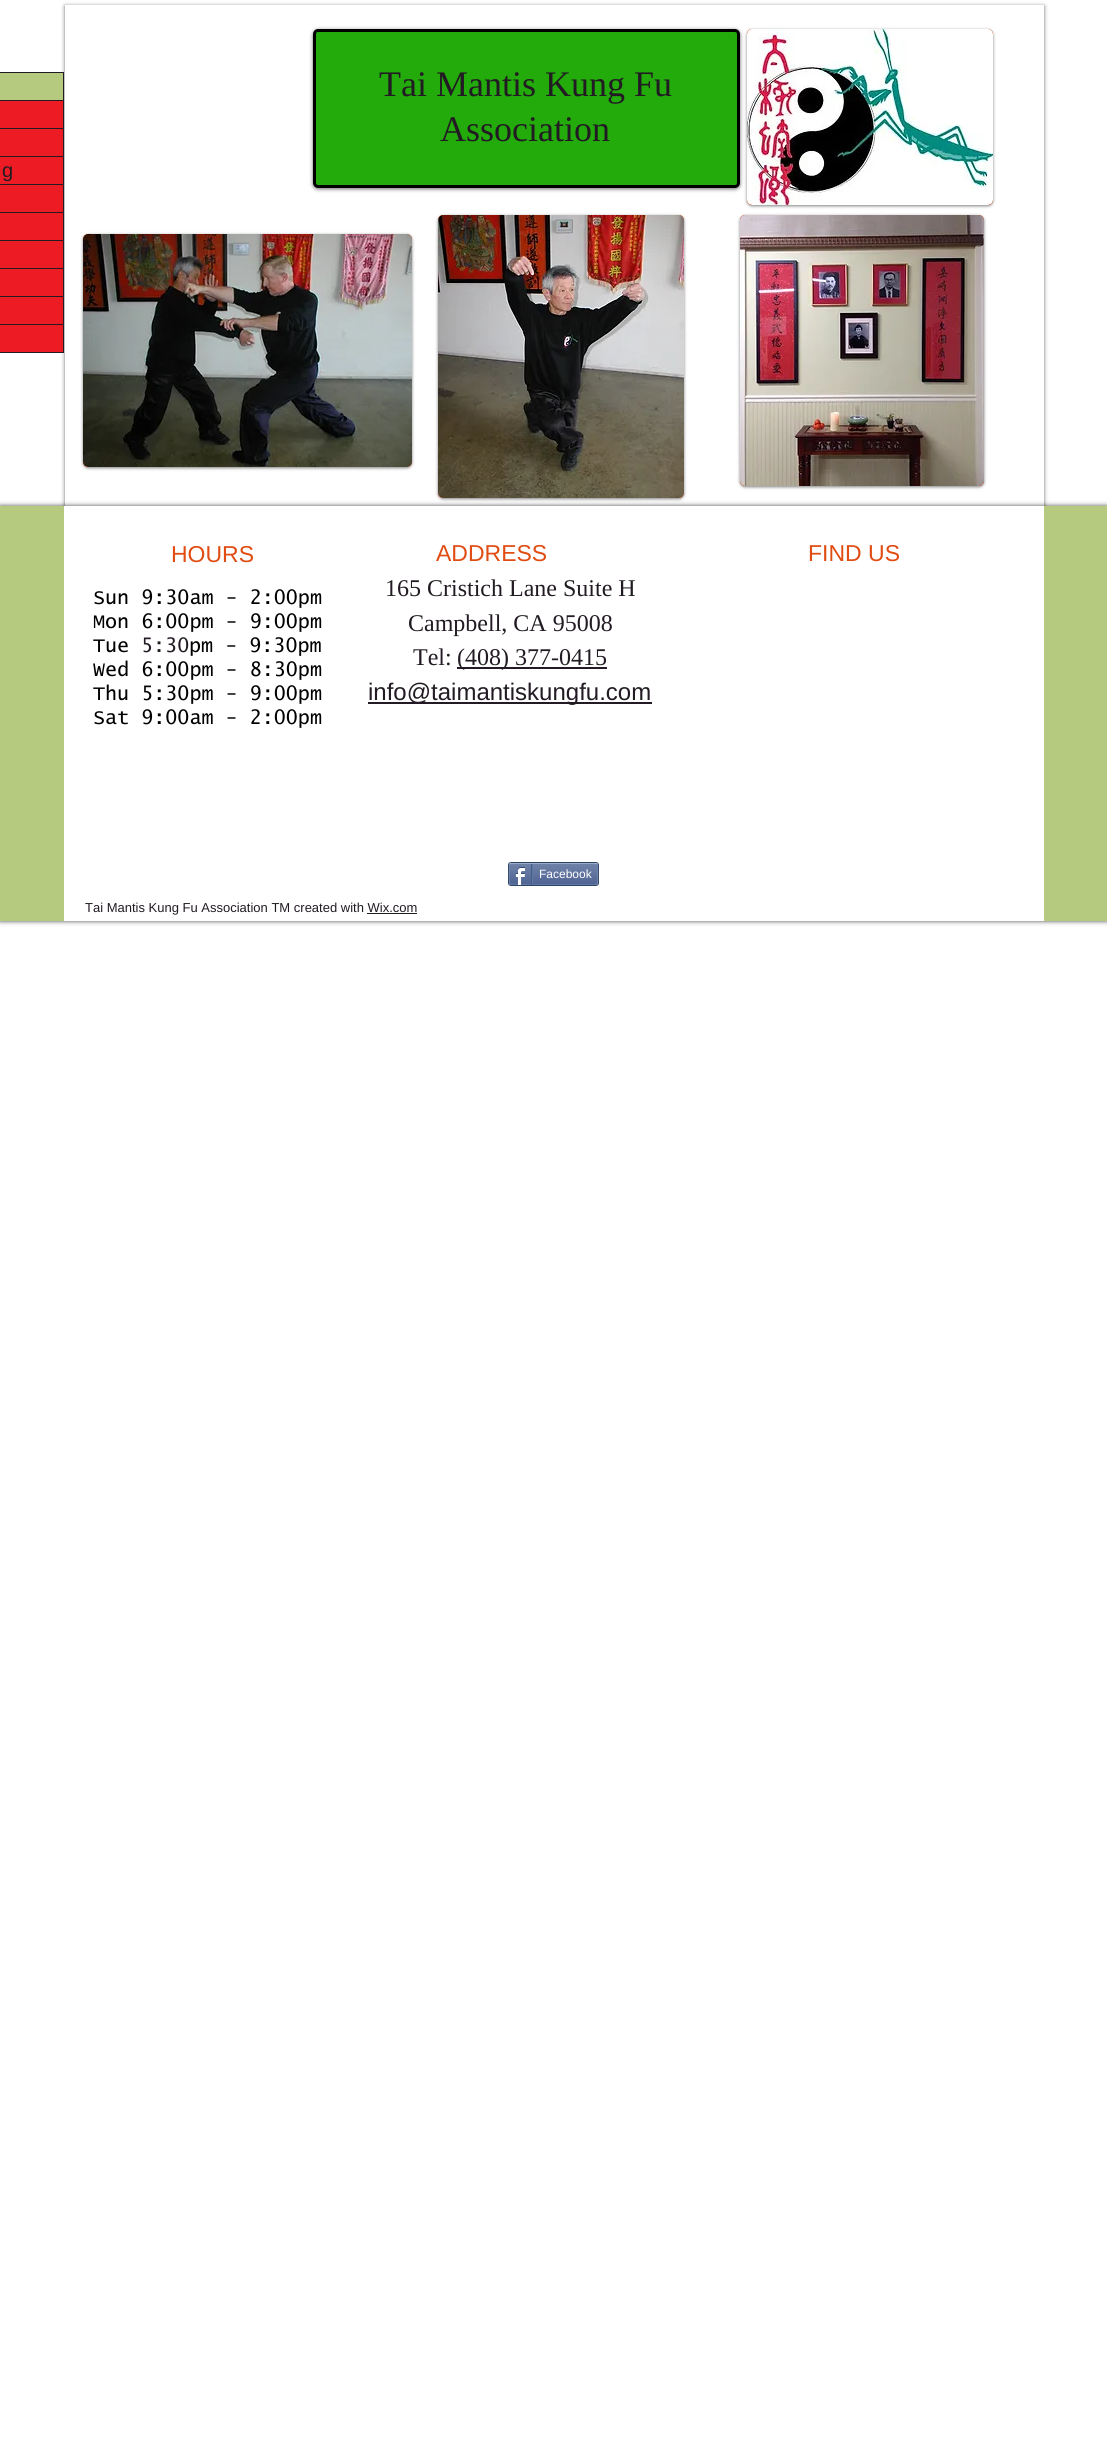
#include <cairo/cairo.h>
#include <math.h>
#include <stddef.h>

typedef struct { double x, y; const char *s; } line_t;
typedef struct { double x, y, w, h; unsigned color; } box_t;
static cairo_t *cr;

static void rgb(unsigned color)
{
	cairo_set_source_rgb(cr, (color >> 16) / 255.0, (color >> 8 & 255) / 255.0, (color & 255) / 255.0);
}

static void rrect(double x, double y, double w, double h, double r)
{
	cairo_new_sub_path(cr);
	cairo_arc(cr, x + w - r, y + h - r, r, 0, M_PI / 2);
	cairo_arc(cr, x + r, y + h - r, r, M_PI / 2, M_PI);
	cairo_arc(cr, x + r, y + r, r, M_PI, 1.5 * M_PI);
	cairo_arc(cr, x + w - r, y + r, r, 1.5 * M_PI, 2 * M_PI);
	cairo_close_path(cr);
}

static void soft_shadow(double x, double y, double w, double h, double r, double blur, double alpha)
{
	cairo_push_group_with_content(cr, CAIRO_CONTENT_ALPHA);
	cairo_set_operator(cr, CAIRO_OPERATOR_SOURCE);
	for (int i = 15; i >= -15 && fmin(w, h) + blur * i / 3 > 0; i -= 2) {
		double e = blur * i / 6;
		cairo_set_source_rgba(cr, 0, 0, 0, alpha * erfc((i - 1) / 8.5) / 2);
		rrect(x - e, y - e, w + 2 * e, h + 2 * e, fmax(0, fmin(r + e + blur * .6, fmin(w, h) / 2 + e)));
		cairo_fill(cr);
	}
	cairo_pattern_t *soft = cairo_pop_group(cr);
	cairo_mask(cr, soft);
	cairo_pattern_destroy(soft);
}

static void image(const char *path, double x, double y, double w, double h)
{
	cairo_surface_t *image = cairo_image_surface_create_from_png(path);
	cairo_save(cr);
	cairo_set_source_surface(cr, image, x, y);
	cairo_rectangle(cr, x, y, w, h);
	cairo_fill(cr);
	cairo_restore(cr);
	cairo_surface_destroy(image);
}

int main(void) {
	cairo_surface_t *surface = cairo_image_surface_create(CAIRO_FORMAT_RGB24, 1107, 2450);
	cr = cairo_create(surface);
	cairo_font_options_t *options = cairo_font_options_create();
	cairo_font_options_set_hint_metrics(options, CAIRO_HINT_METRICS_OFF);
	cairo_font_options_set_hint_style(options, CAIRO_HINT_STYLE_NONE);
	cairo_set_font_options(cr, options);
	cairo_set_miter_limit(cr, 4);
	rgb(0xffffff);
	cairo_paint(cr);
	cairo_save(cr);
	cairo_set_fill_rule(cr, CAIRO_FILL_RULE_EVEN_ODD);
	cairo_new_path(cr);
	cairo_move_to(cr, 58, 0);
	cairo_line_to(cr, 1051, 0);
	cairo_line_to(cr, 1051, 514);
	cairo_line_to(cr, 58, 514);
	cairo_close_path(cr);
	cairo_move_to(cr, 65, 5);
	cairo_line_to(cr, 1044, 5);
	cairo_line_to(cr, 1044, 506);
	cairo_line_to(cr, 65, 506);
	cairo_close_path(cr);
	cairo_clip(cr);
	rgb(0x000000);
	soft_shadow(65, 6, 979, 501, 0, 2, 0.6);
	cairo_restore(cr);
	rgb(0x000000);
	soft_shadow(313, 30, 427, 159, 5, 2, 0.6);
	rgb(0x22ab0a);
	rrect(314.5, 30.5, 424, 156, 3.5);
	cairo_fill_preserve(cr);
	rgb(0x000000);
	cairo_set_line_width(cr, 3);
	cairo_stroke(cr);
	rgb(0x000000);
	soft_shadow(747, 30, 246, 176, 5, 1.5, 0.5);
	rgb(0xe04c11);
	rrect(747, 29, 246, 176, 5);
	cairo_fill(cr);
	image("img/1.png", 747, 29, 246, 176);
	rgb(0x000000);
	soft_shadow(83, 235, 329, 233, 5, 1.5, 0.5);
	rgb(0xe04c11);
	rrect(83, 234, 329, 233, 5);
	cairo_fill(cr);
	image("img/2.png", 83, 234, 329, 233);
	rgb(0x000000);
	soft_shadow(438, 216, 246, 283, 5, 1.5, 0.5);
	rgb(0xe04c11);
	rrect(438, 215, 246, 283, 5);
	cairo_fill(cr);
	image("img/3.png", 438, 215, 246, 283);
	rgb(0x000000);
	soft_shadow(740, 216, 244, 271, 5, 1.5, 0.5);
	rgb(0xe04c11);
	rrect(740, 215, 244, 271, 5);
	cairo_fill(cr);
	image("img/4.png", 740, 215, 244, 271);
	cairo_rectangle(cr, -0.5, 72.5, 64, 280);
	rgb(0x221b23);
	cairo_set_line_width(cr, 1);
	cairo_stroke(cr);
	{
		static const box_t items[] = {
			{0, 100, 63, 1, 0x221b23},
			{0, 73, 63, 27, 0xb6ca7f},
			{0, 128, 63, 1, 0x221b23},
			{0, 101, 63, 27, 0xed1c24},
			{0, 156, 63, 1, 0x221b23},
			{0, 129, 63, 27, 0xed1c24},
			{0, 184, 63, 1, 0x221b23},
			{0, 157, 63, 27, 0xed1c24},
			{0, 212, 63, 1, 0x221b23},
			{0, 185, 63, 27, 0xed1c24},
			{0, 240, 63, 1, 0x221b23},
			{0, 213, 63, 27, 0xed1c24},
			{0, 268, 63, 1, 0x221b23},
			{0, 241, 63, 27, 0xed1c24},
			{0, 296, 63, 1, 0x221b23},
			{0, 269, 63, 27, 0xed1c24},
			{0, 324, 63, 1, 0x221b23},
			{0, 297, 63, 27, 0xed1c24},
			{0, 325, 63, 27, 0xed1c24},
		};
		for (size_t i = 0; i < sizeof items / sizeof *items; i++) {
			rgb(items[i].color);
			cairo_rectangle(cr, items[i].x, items[i].y, items[i].w, items[i].h);
			cairo_fill(cr);
		}
	}
	rgb(0x000000);
	soft_shadow(0, 506, 1107, 415, 0, 2.5, 0.7);
	{
		static const box_t items[] = {
			{0, 506, 1107, 415, 0xb6ca7f},
			{64, 506, 980, 415, 0xffffff},
			{457, 667, 150, 2, 0x221b23},
			{368, 702, 284, 2, 0x221b23},
		};
		for (size_t i = 0; i < sizeof items / sizeof *items; i++) {
			rgb(items[i].color);
			cairo_rectangle(cr, items[i].x, items[i].y, items[i].w, items[i].h);
			cairo_fill(cr);
		}
	}
	rrect(508.5, 862.5, 90, 23, 2.5);
	rgb(0x2d4565);
	cairo_stroke(cr);
	image("img/5.png", 509, 864, 89, 21);
	cairo_new_path(cr);
	cairo_move_to(cr, 510, 864);
	cairo_line_to(cr, 511, 863.5);
	cairo_line_to(cr, 596, 863.5);
	cairo_line_to(cr, 597, 864);
	rgb(0x9aabc6);
	cairo_stroke(cr);
	cairo_new_path(cr);
	cairo_move_to(cr, 597, 864);
	cairo_curve_to(cr, 598, 864.5, 598, 883.5, 597, 884);
	rgb(0x6f83ad);
	cairo_stroke(cr);
	cairo_new_path(cr);
	cairo_move_to(cr, 597, 884);
	cairo_line_to(cr, 596, 884.5);
	cairo_line_to(cr, 511, 884.5);
	cairo_line_to(cr, 510, 884);
	rgb(0x6176a3);
	cairo_stroke(cr);
	cairo_new_path(cr);
	cairo_move_to(cr, 510, 884);
	cairo_curve_to(cr, 509, 883.5, 509, 864.5, 510, 864);
	rgb(0x6f83ad);
	cairo_stroke(cr);
	image("img/6.png", 515, 867, 10, 18);
	{
		static const box_t items[] = {
			{531, 864, 1, 21, 0x425e85},
			{532, 864, 1, 20, 0x6176a3},
			{367, 913, 50, 1, 0x221b23},
		};
		for (size_t i = 0; i < sizeof items / sizeof *items; i++) {
			rgb(items[i].color);
			cairo_rectangle(cr, items[i].x, items[i].y, items[i].w, items[i].h);
			cairo_fill(cr);
		}
	}
	cairo_select_font_face(cr, "Liberation Serif", CAIRO_FONT_SLANT_NORMAL, CAIRO_FONT_WEIGHT_NORMAL);
	cairo_set_font_size(cr, 36);
	cairo_move_to(cr, 379, 96);
	cairo_show_text(cr, "Tai Mantis Kung Fu");
	cairo_move_to(cr, 440, 141);
	cairo_show_text(cr, "Association");
	cairo_select_font_face(cr, "Liberation Sans", CAIRO_FONT_SLANT_NORMAL, CAIRO_FONT_WEIGHT_NORMAL);
	cairo_set_font_size(cr, 20);
	cairo_move_to(cr, 2, 177);
	cairo_show_text(cr, "g");
	cairo_set_font_size(cr, 23);
	rgb(0xe04c11);
	{
		static const line_t items[] = {
			{171, 562, "HOURS"},
			{436, 561, "ADDRESS"},
			{808, 561, "FIND US"},
		};
		for (size_t i = 0; i < sizeof items / sizeof *items; i++) {
			cairo_move_to(cr, items[i].x, items[i].y);
			cairo_show_text(cr, items[i].s);
		}
	}
	cairo_select_font_face(cr, "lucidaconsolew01", CAIRO_FONT_SLANT_NORMAL, CAIRO_FONT_WEIGHT_NORMAL);
	cairo_set_font_size(cr, 20);
	rgb(0x000000);
	{
		static const line_t items[] = {
			{93, 604, "Sun 9:30am - 2:00pm"},
			{93, 628, "Mon 6:00pm - 9:00pm"},
			{93, 652, "Tue"},
		};
		for (size_t i = 0; i < sizeof items / sizeof *items; i++) {
			cairo_move_to(cr, items[i].x, items[i].y);
			cairo_show_text(cr, items[i].s);
		}
	}
	rgb(0x221b23);
	cairo_move_to(cr, 141, 652);
	cairo_show_text(cr, "5:30");
	rgb(0x000000);
	{
		static const line_t items[] = {
			{189, 652, "pm - 9:30pm"},
			{93, 676, "Wed 6:00pm - 8:30pm"},
			{93, 700, "Thu 5:30pm - 9:00pm"},
			{93, 724, "Sat 9:00am - 2:00pm"},
		};
		for (size_t i = 0; i < sizeof items / sizeof *items; i++) {
			cairo_move_to(cr, items[i].x, items[i].y);
			cairo_show_text(cr, items[i].s);
		}
	}
	cairo_select_font_face(cr, "Liberation Serif", CAIRO_FONT_SLANT_NORMAL, CAIRO_FONT_WEIGHT_NORMAL);
	cairo_set_font_size(cr, 24);
	rgb(0x221b23);
	{
		static const line_t items[] = {
			{385, 596, "165 Cristich Lane Suite H"},
			{408, 631, "Campbell, CA 95008"},
			{413, 665, "Tel:"},
			{457, 665, "(408) 377-0415"},
		};
		for (size_t i = 0; i < sizeof items / sizeof *items; i++) {
			cairo_move_to(cr, items[i].x, items[i].y);
			cairo_show_text(cr, items[i].s);
		}
	}
	cairo_select_font_face(cr, "Liberation Sans", CAIRO_FONT_SLANT_NORMAL, CAIRO_FONT_WEIGHT_NORMAL);
	cairo_move_to(cr, 368, 700);
	cairo_show_text(cr, "info@taimantiskungfu.com");
	cairo_set_font_size(cr, 12);
	rgb(0xffffff);
	cairo_move_to(cr, 539, 878);
	cairo_show_text(cr, "Facebook");
	cairo_set_font_size(cr, 13);
	rgb(0x221b23);
	cairo_move_to(cr, 85, 912);
	cairo_show_text(cr, "Tai Mantis Kung Fu Association TM created with Wix.com");
	cairo_surface_write_to_png(surface, "page.png");
	cairo_font_options_destroy(options);
	cairo_destroy(cr);
	cairo_surface_destroy(surface);
	return 0;
}
